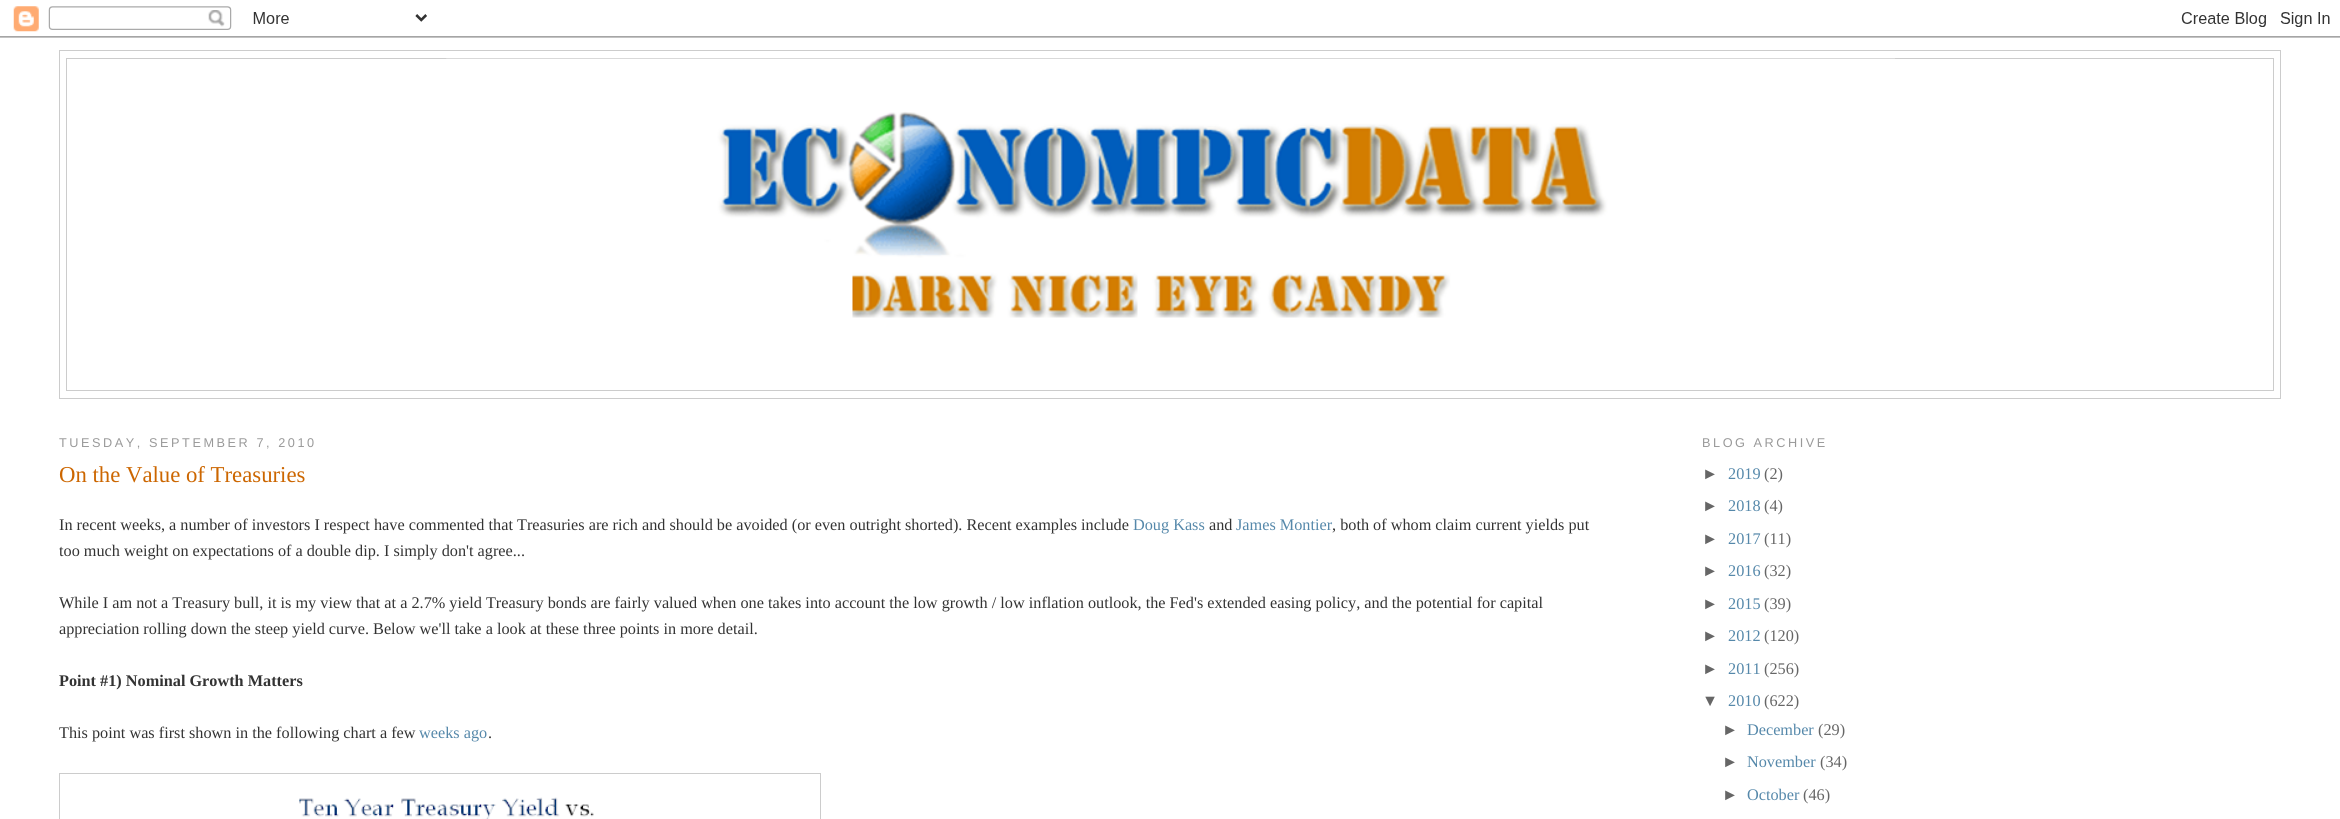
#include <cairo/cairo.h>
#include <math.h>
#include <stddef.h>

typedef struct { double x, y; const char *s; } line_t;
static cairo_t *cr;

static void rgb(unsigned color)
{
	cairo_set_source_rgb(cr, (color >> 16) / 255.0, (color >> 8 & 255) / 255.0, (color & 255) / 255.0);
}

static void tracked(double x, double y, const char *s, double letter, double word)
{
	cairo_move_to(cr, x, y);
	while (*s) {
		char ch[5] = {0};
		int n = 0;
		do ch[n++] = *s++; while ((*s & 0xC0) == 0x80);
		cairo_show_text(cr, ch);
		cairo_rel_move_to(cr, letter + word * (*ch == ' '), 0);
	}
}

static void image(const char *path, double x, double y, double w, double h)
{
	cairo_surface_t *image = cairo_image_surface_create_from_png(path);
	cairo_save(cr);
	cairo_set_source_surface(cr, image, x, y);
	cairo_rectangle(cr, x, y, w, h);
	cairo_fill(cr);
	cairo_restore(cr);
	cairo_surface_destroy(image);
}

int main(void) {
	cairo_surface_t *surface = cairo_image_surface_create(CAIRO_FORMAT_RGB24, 2340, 819);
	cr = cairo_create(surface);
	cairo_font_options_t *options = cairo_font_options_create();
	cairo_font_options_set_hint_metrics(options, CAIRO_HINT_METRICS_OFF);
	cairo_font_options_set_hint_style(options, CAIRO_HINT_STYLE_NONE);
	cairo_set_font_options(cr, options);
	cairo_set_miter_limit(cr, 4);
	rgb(0xffffff);
	cairo_paint(cr);
	image("img/1.png", 0, 6, 2340, 32);
	cairo_rectangle(cr, 59.5, 50.5, 2221, 348);
	rgb(0xcccccc);
	cairo_set_line_width(cr, 1);
	cairo_stroke(cr);
	cairo_rectangle(cr, 66.5, 58.5, 2207, 332);
	cairo_stroke(cr);
	image("img/2.png", 446, 58, 1449, 260);
	cairo_rectangle(cr, 59.5, 773.5, 761, 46);
	cairo_stroke(cr);
	image("img/3.png", 299, 797, 295, 22);
	cairo_select_font_face(cr, "Liberation Sans", CAIRO_FONT_SLANT_NORMAL, CAIRO_FONT_WEIGHT_NORMAL);
	cairo_set_font_size(cr, 12.7);
	rgb(0x999999);
	tracked(59, 447, "TUESDAY, SEPTEMBER 7, 2010", 2.55, 0);
	cairo_select_font_face(cr, "Liberation Serif", CAIRO_FONT_SLANT_NORMAL, CAIRO_FONT_WEIGHT_NORMAL);
	cairo_set_font_size(cr, 22.75);
	rgb(0xcc6600);
	cairo_move_to(cr, 59, 482);
	cairo_show_text(cr, "On the Value of Treasuries");
	cairo_set_font_size(cr, 16.25);
	rgb(0x333333);
	cairo_move_to(cr, 59, 530);
	cairo_show_text(cr, "In recent weeks, a number of investors I respect have commented that Treasuries are rich and should be avoided (or even outright shorted). Recent examples include");
	rgb(0x5588aa);
	cairo_move_to(cr, 1133, 530);
	cairo_show_text(cr, "Doug Kass");
	rgb(0x333333);
	cairo_move_to(cr, 1209, 530);
	cairo_show_text(cr, "and");
	rgb(0x5588aa);
	cairo_move_to(cr, 1236, 530);
	cairo_show_text(cr, "James Montier");
	rgb(0x333333);
	{
		static const line_t items[] = {
			{1332, 530, ", both of whom claim current yields put"},
			{59, 556, "too much weight on expectations of a double dip. I simply don't agree..."},
			{59, 608, "While I am not a Treasury bull, it is my view that at a 2.7% yield Treasury bonds are fairly valued when one takes into account the low growth / low inflation outlook, the Fed's extended easing policy, and the potential for capital"},
			{59, 634, "appreciation rolling down the steep yield curve. Below we'll take a look at these three points in more detail."},
		};
		for (size_t i = 0; i < sizeof items / sizeof *items; i++) {
			cairo_move_to(cr, items[i].x, items[i].y);
			cairo_show_text(cr, items[i].s);
		}
	}
	cairo_select_font_face(cr, "Liberation Serif", CAIRO_FONT_SLANT_NORMAL, CAIRO_FONT_WEIGHT_BOLD);
	cairo_move_to(cr, 59, 686);
	cairo_show_text(cr, "Point #1) Nominal Growth Matters");
	cairo_select_font_face(cr, "Liberation Serif", CAIRO_FONT_SLANT_NORMAL, CAIRO_FONT_WEIGHT_NORMAL);
	cairo_move_to(cr, 59, 738);
	cairo_show_text(cr, "This point was first shown in the following chart a few");
	rgb(0x5588aa);
	cairo_move_to(cr, 419, 738);
	cairo_show_text(cr, "weeks ago");
	rgb(0x333333);
	cairo_move_to(cr, 488, 738);
	cairo_show_text(cr, ".");
	cairo_select_font_face(cr, "Liberation Sans", CAIRO_FONT_SLANT_NORMAL, CAIRO_FONT_WEIGHT_NORMAL);
	cairo_set_font_size(cr, 12.7);
	rgb(0x999999);
	tracked(1702, 447, "BLOG ARCHIVE", 2.55, 0);
	cairo_set_font_size(cr, 16.25);
	rgb(0x666666);
	cairo_move_to(cr, 1702, 479);
	cairo_show_text(cr, "►");
	cairo_select_font_face(cr, "Liberation Serif", CAIRO_FONT_SLANT_NORMAL, CAIRO_FONT_WEIGHT_NORMAL);
	rgb(0x5588aa);
	cairo_move_to(cr, 1728, 479);
	cairo_show_text(cr, "2019");
	rgb(0x666666);
	cairo_move_to(cr, 1764, 479);
	cairo_show_text(cr, "(2)");
	cairo_select_font_face(cr, "Liberation Sans", CAIRO_FONT_SLANT_NORMAL, CAIRO_FONT_WEIGHT_NORMAL);
	cairo_move_to(cr, 1702, 511);
	cairo_show_text(cr, "►");
	cairo_select_font_face(cr, "Liberation Serif", CAIRO_FONT_SLANT_NORMAL, CAIRO_FONT_WEIGHT_NORMAL);
	rgb(0x5588aa);
	cairo_move_to(cr, 1728, 511);
	cairo_show_text(cr, "2018");
	rgb(0x666666);
	cairo_move_to(cr, 1764, 511);
	cairo_show_text(cr, "(4)");
	cairo_select_font_face(cr, "Liberation Sans", CAIRO_FONT_SLANT_NORMAL, CAIRO_FONT_WEIGHT_NORMAL);
	cairo_move_to(cr, 1702, 544);
	cairo_show_text(cr, "►");
	cairo_select_font_face(cr, "Liberation Serif", CAIRO_FONT_SLANT_NORMAL, CAIRO_FONT_WEIGHT_NORMAL);
	rgb(0x5588aa);
	cairo_move_to(cr, 1728, 544);
	cairo_show_text(cr, "2017");
	rgb(0x666666);
	cairo_move_to(cr, 1764, 544);
	cairo_show_text(cr, "(11)");
	cairo_select_font_face(cr, "Liberation Sans", CAIRO_FONT_SLANT_NORMAL, CAIRO_FONT_WEIGHT_NORMAL);
	cairo_move_to(cr, 1702, 576);
	cairo_show_text(cr, "►");
	cairo_select_font_face(cr, "Liberation Serif", CAIRO_FONT_SLANT_NORMAL, CAIRO_FONT_WEIGHT_NORMAL);
	rgb(0x5588aa);
	cairo_move_to(cr, 1728, 576);
	cairo_show_text(cr, "2016");
	rgb(0x666666);
	cairo_move_to(cr, 1764, 576);
	cairo_show_text(cr, "(32)");
	cairo_select_font_face(cr, "Liberation Sans", CAIRO_FONT_SLANT_NORMAL, CAIRO_FONT_WEIGHT_NORMAL);
	cairo_move_to(cr, 1702, 609);
	cairo_show_text(cr, "►");
	cairo_select_font_face(cr, "Liberation Serif", CAIRO_FONT_SLANT_NORMAL, CAIRO_FONT_WEIGHT_NORMAL);
	rgb(0x5588aa);
	cairo_move_to(cr, 1728, 609);
	cairo_show_text(cr, "2015");
	rgb(0x666666);
	cairo_move_to(cr, 1764, 609);
	cairo_show_text(cr, "(39)");
	cairo_select_font_face(cr, "Liberation Sans", CAIRO_FONT_SLANT_NORMAL, CAIRO_FONT_WEIGHT_NORMAL);
	cairo_move_to(cr, 1702, 641);
	cairo_show_text(cr, "►");
	cairo_select_font_face(cr, "Liberation Serif", CAIRO_FONT_SLANT_NORMAL, CAIRO_FONT_WEIGHT_NORMAL);
	rgb(0x5588aa);
	cairo_move_to(cr, 1728, 641);
	cairo_show_text(cr, "2012");
	rgb(0x666666);
	cairo_move_to(cr, 1764, 641);
	cairo_show_text(cr, "(120)");
	cairo_select_font_face(cr, "Liberation Sans", CAIRO_FONT_SLANT_NORMAL, CAIRO_FONT_WEIGHT_NORMAL);
	cairo_move_to(cr, 1702, 674);
	cairo_show_text(cr, "►");
	cairo_select_font_face(cr, "Liberation Serif", CAIRO_FONT_SLANT_NORMAL, CAIRO_FONT_WEIGHT_NORMAL);
	rgb(0x5588aa);
	cairo_move_to(cr, 1728, 674);
	cairo_show_text(cr, "2011");
	rgb(0x666666);
	cairo_move_to(cr, 1764, 674);
	cairo_show_text(cr, "(256)");
	cairo_select_font_face(cr, "Liberation Sans", CAIRO_FONT_SLANT_NORMAL, CAIRO_FONT_WEIGHT_NORMAL);
	cairo_move_to(cr, 1702, 706);
	cairo_show_text(cr, "▼");
	cairo_select_font_face(cr, "Liberation Serif", CAIRO_FONT_SLANT_NORMAL, CAIRO_FONT_WEIGHT_NORMAL);
	rgb(0x5588aa);
	cairo_move_to(cr, 1728, 706);
	cairo_show_text(cr, "2010");
	rgb(0x666666);
	cairo_move_to(cr, 1764, 706);
	cairo_show_text(cr, "(622)");
	cairo_select_font_face(cr, "Liberation Sans", CAIRO_FONT_SLANT_NORMAL, CAIRO_FONT_WEIGHT_NORMAL);
	cairo_move_to(cr, 1722, 735);
	cairo_show_text(cr, "►");
	cairo_select_font_face(cr, "Liberation Serif", CAIRO_FONT_SLANT_NORMAL, CAIRO_FONT_WEIGHT_NORMAL);
	rgb(0x5588aa);
	cairo_move_to(cr, 1747, 735);
	cairo_show_text(cr, "December");
	rgb(0x666666);
	cairo_move_to(cr, 1818, 735);
	cairo_show_text(cr, "(29)");
	cairo_select_font_face(cr, "Liberation Sans", CAIRO_FONT_SLANT_NORMAL, CAIRO_FONT_WEIGHT_NORMAL);
	cairo_move_to(cr, 1722, 767);
	cairo_show_text(cr, "►");
	cairo_select_font_face(cr, "Liberation Serif", CAIRO_FONT_SLANT_NORMAL, CAIRO_FONT_WEIGHT_NORMAL);
	rgb(0x5588aa);
	cairo_move_to(cr, 1747, 767);
	cairo_show_text(cr, "November");
	rgb(0x666666);
	cairo_move_to(cr, 1820, 767);
	cairo_show_text(cr, "(34)");
	cairo_select_font_face(cr, "Liberation Sans", CAIRO_FONT_SLANT_NORMAL, CAIRO_FONT_WEIGHT_NORMAL);
	cairo_move_to(cr, 1722, 800);
	cairo_show_text(cr, "►");
	cairo_select_font_face(cr, "Liberation Serif", CAIRO_FONT_SLANT_NORMAL, CAIRO_FONT_WEIGHT_NORMAL);
	rgb(0x5588aa);
	cairo_move_to(cr, 1747, 800);
	cairo_show_text(cr, "October");
	rgb(0x666666);
	cairo_move_to(cr, 1803, 800);
	cairo_show_text(cr, "(46)");
	cairo_surface_write_to_png(surface, "page.png");
	cairo_font_options_destroy(options);
	cairo_destroy(cr);
	cairo_surface_destroy(surface);
	return 0;
}
